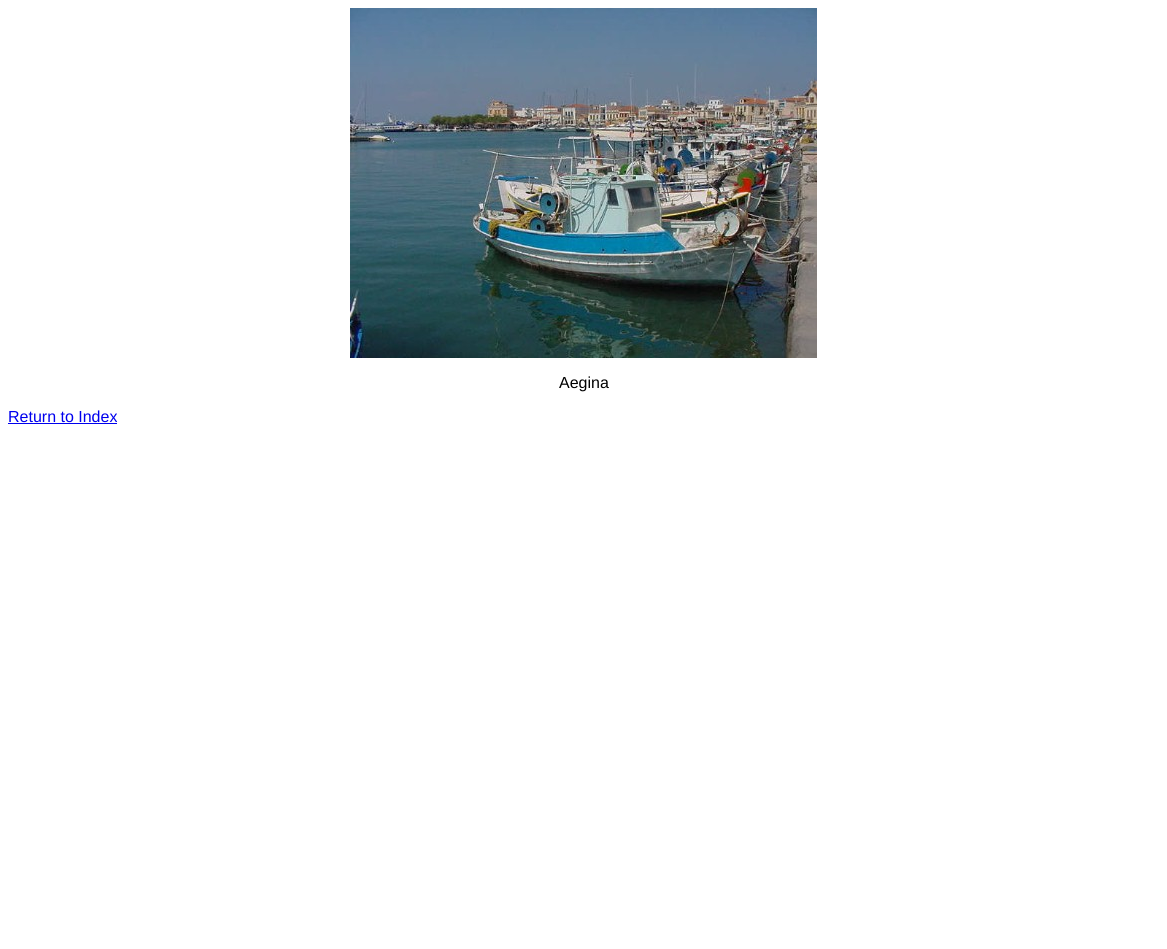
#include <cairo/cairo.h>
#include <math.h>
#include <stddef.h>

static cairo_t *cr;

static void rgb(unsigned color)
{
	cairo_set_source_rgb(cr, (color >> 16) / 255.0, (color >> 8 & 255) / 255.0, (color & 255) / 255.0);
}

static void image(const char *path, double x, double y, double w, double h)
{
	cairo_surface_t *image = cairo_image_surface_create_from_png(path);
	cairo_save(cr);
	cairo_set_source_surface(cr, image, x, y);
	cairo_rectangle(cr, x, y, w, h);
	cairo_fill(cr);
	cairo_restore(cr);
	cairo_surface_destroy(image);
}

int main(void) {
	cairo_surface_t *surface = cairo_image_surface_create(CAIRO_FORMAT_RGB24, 1167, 949);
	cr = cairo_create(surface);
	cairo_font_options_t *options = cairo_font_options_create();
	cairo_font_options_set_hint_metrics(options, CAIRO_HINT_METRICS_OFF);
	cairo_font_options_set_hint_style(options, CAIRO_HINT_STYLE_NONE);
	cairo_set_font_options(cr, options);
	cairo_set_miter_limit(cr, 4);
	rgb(0xffffff);
	cairo_paint(cr);
	image("img/1.png", 350, 8, 467, 350);
	rgb(0x0000ee);
	cairo_rectangle(cr, 8, 423, 109, 1);
	cairo_fill(cr);
	cairo_select_font_face(cr, "Liberation Sans", CAIRO_FONT_SLANT_NORMAL, CAIRO_FONT_WEIGHT_NORMAL);
	cairo_set_font_size(cr, 16);
	rgb(0x000000);
	cairo_move_to(cr, 559, 388);
	cairo_show_text(cr, "Aegina");
	rgb(0x0000ee);
	cairo_move_to(cr, 8, 422);
	cairo_show_text(cr, "Return to Index");
	cairo_surface_write_to_png(surface, "page.png");
	cairo_font_options_destroy(options);
	cairo_destroy(cr);
	cairo_surface_destroy(surface);
	return 0;
}
